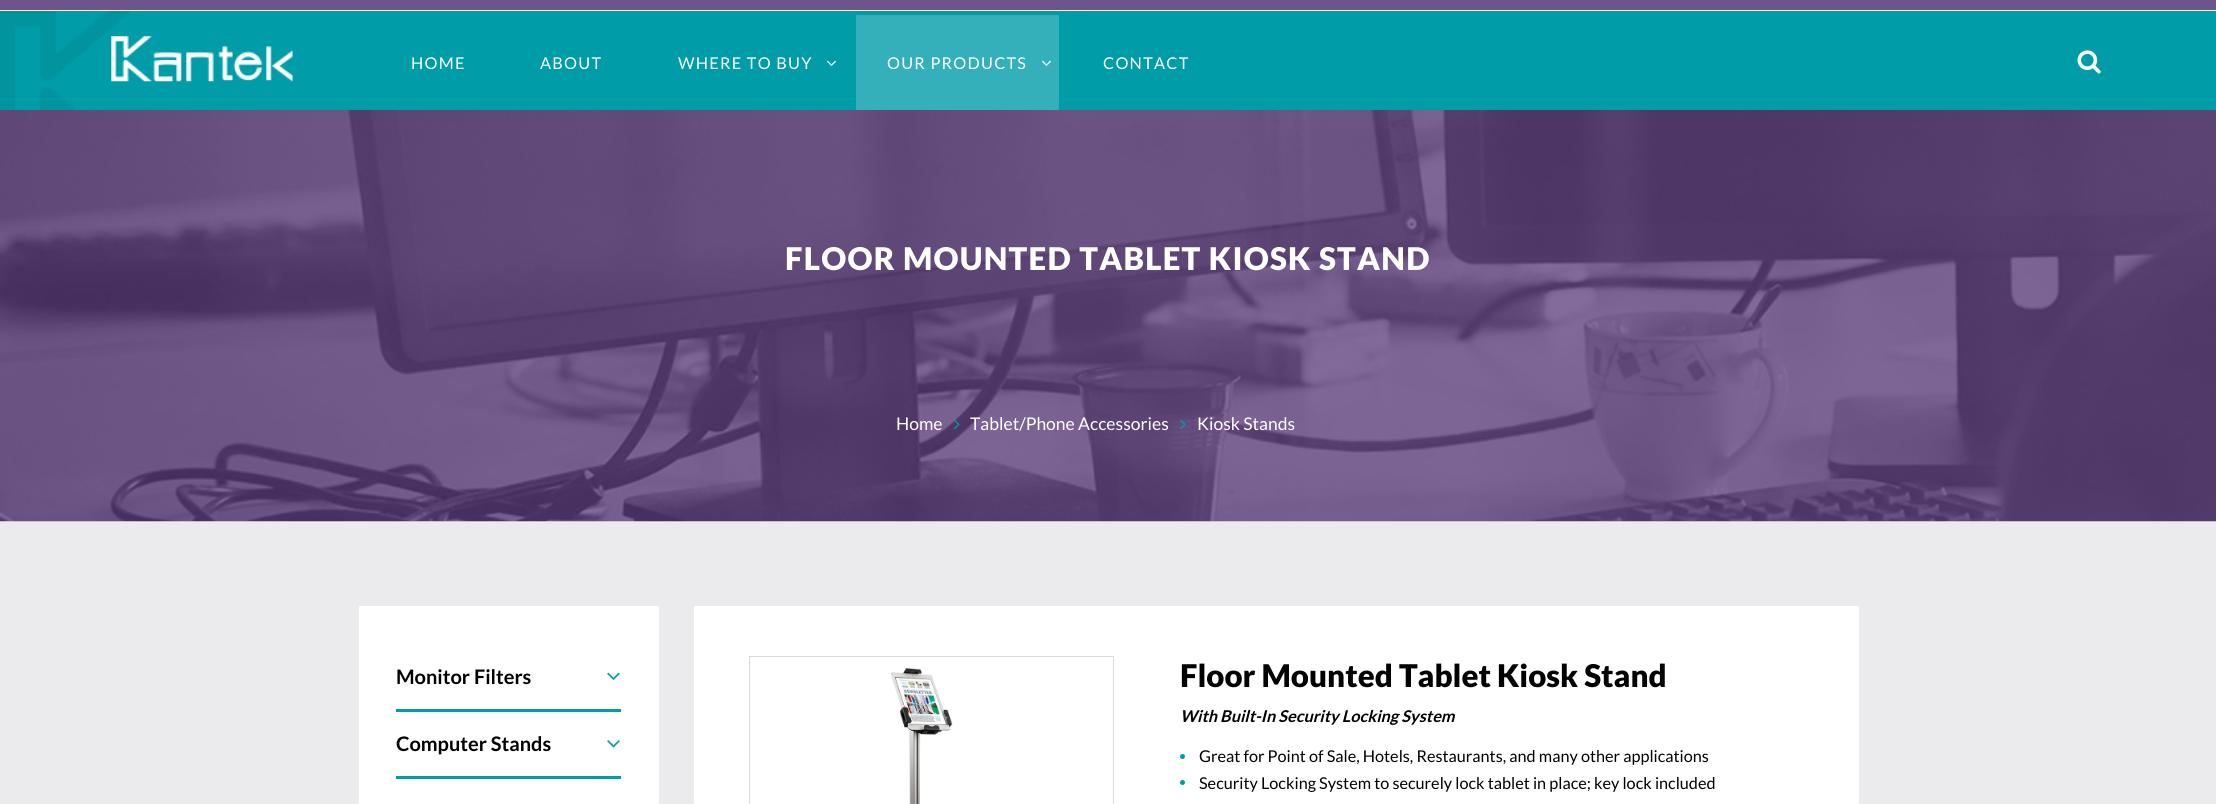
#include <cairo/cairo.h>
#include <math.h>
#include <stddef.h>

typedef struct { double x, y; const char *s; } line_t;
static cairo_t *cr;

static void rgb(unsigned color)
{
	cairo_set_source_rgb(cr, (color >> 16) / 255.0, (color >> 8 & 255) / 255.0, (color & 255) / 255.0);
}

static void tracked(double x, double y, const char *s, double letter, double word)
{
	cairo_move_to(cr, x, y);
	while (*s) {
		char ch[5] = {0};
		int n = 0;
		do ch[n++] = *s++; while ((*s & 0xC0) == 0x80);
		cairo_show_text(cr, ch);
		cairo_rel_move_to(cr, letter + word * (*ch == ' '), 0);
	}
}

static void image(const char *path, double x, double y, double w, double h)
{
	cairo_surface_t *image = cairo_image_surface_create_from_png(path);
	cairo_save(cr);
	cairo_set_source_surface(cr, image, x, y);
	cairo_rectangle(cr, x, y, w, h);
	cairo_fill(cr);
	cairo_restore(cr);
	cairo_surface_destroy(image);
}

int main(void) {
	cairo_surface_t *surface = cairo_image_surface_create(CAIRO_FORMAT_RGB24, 2216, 804);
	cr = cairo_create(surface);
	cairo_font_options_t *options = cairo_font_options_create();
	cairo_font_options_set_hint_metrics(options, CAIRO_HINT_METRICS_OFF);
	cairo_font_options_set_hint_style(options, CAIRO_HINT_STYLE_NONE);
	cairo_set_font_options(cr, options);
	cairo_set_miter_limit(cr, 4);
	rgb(0xebebed);
	cairo_paint(cr);
	rgb(0x009ca8);
	cairo_rectangle(cr, 0, 11, 2216, 99);
	cairo_fill(cr);
	image("img/1.png", 0, 11, 131, 99);
	rgb(0x6e548b);
	cairo_rectangle(cr, 0, 0, 2216, 10);
	cairo_fill(cr);
	rgb(0xffffff);
	cairo_rectangle(cr, 0, 10, 2216, 1);
	cairo_fill(cr);
	image("img/2.png", 111, 36, 182, 46);
	image("img/3.png", 827, 60, 9, 6);
	rgb(0x33b0b9);
	cairo_rectangle(cr, 856, 15, 203, 95);
	cairo_fill(cr);
	image("img/4.png", 1042, 60, 9, 6);
	image("img/5.png", 2077, 50, 24, 24);
	image("img/6.png", 0, 110, 2216, 412);
	image("img/7.png", 953, 419, 7, 11);
	image("img/8.png", 1180, 419, 6, 11);
	rgb(0xffffff);
	cairo_rectangle(cr, 359, 606, 300, 198);
	cairo_fill(cr);
	rgb(0x009ca7);
	cairo_rectangle(cr, 396, 709, 225, 3);
	cairo_fill(cr);
	image("img/9.png", 607, 672, 13, 8);
	cairo_rectangle(cr, 396, 776, 225, 3);
	cairo_fill(cr);
	image("img/10.png", 607, 740, 13, 8);
	rgb(0xffffff);
	cairo_rectangle(cr, 694, 606, 1165, 198);
	cairo_fill(cr);
	cairo_rectangle(cr, 749.5, 656.5, 364, 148);
	rgb(0xdadadc);
	cairo_set_line_width(cr, 1);
	cairo_stroke(cr);
	image("img/11.png", 890, 668, 63, 136);
	rgb(0x009ca8);
	cairo_arc(cr, 1182.5, 756.5, 2.5, 0, 2 * M_PI);
	cairo_fill(cr);
	cairo_arc(cr, 1182.5, 782.5, 2.5, 0, 2 * M_PI);
	cairo_fill(cr);
	cairo_select_font_face(cr, "Lato", CAIRO_FONT_SLANT_NORMAL, CAIRO_FONT_WEIGHT_NORMAL);
	cairo_set_font_size(cr, 16.25);
	rgb(0xffffff);
	{
		static const line_t items[] = {
			{411, 69, "HOME"},
			{540, 69, "ABOUT"},
			{678, 69, "WHERE TO BUY"},
			{887, 69, "OUR PRODUCTS"},
			{1103, 69, "CONTACT"},
		};
		for (size_t i = 0; i < sizeof items / sizeof *items; i++) {
			tracked(items[i].x, items[i].y, items[i].s, 1.25, 0);
		}
	}
	cairo_select_font_face(cr, "Lato Black", CAIRO_FONT_SLANT_NORMAL, CAIRO_FONT_WEIGHT_NORMAL);
	cairo_set_font_size(cr, 31.25);
	tracked(785, 270, "FLOOR MOUNTED TABLET KIOSK STAND", 1.25, 0);
	cairo_select_font_face(cr, "Lato", CAIRO_FONT_SLANT_NORMAL, CAIRO_FONT_WEIGHT_NORMAL);
	cairo_set_font_size(cr, 17.5);
	{
		static const line_t items[] = {
			{896, 430, "Home"},
			{970, 430, "Tablet/Phone Accessories"},
			{1197, 430, "Kiosk Stands"},
		};
		for (size_t i = 0; i < sizeof items / sizeof *items; i++) {
			cairo_move_to(cr, items[i].x, items[i].y);
			cairo_show_text(cr, items[i].s);
		}
	}
	cairo_select_font_face(cr, "Lato", CAIRO_FONT_SLANT_NORMAL, CAIRO_FONT_WEIGHT_BOLD);
	cairo_set_font_size(cr, 20);
	rgb(0x000000);
	cairo_move_to(cr, 396, 684);
	cairo_show_text(cr, "Monitor Filters");
	cairo_move_to(cr, 396, 751);
	cairo_show_text(cr, "Computer Stands");
	cairo_select_font_face(cr, "Lato Black", CAIRO_FONT_SLANT_NORMAL, CAIRO_FONT_WEIGHT_NORMAL);
	cairo_set_font_size(cr, 31.25);
	cairo_move_to(cr, 1180, 687);
	cairo_show_text(cr, "Floor Mounted Tablet Kiosk Stand");
	cairo_select_font_face(cr, "Lato", CAIRO_FONT_SLANT_ITALIC, CAIRO_FONT_WEIGHT_BOLD);
	cairo_set_font_size(cr, 16.25);
	cairo_move_to(cr, 1180, 722);
	cairo_show_text(cr, "With Built-In Security Locking System");
	cairo_select_font_face(cr, "Lato", CAIRO_FONT_SLANT_NORMAL, CAIRO_FONT_WEIGHT_NORMAL);
	cairo_move_to(cr, 1199, 762);
	cairo_show_text(cr, "Great for Point of Sale, Hotels, Restaurants, and many other applications");
	cairo_move_to(cr, 1199, 789);
	cairo_show_text(cr, "Security Locking System to securely lock tablet in place; key lock included");
	cairo_surface_write_to_png(surface, "page.png");
	cairo_font_options_destroy(options);
	cairo_destroy(cr);
	cairo_surface_destroy(surface);
	return 0;
}
